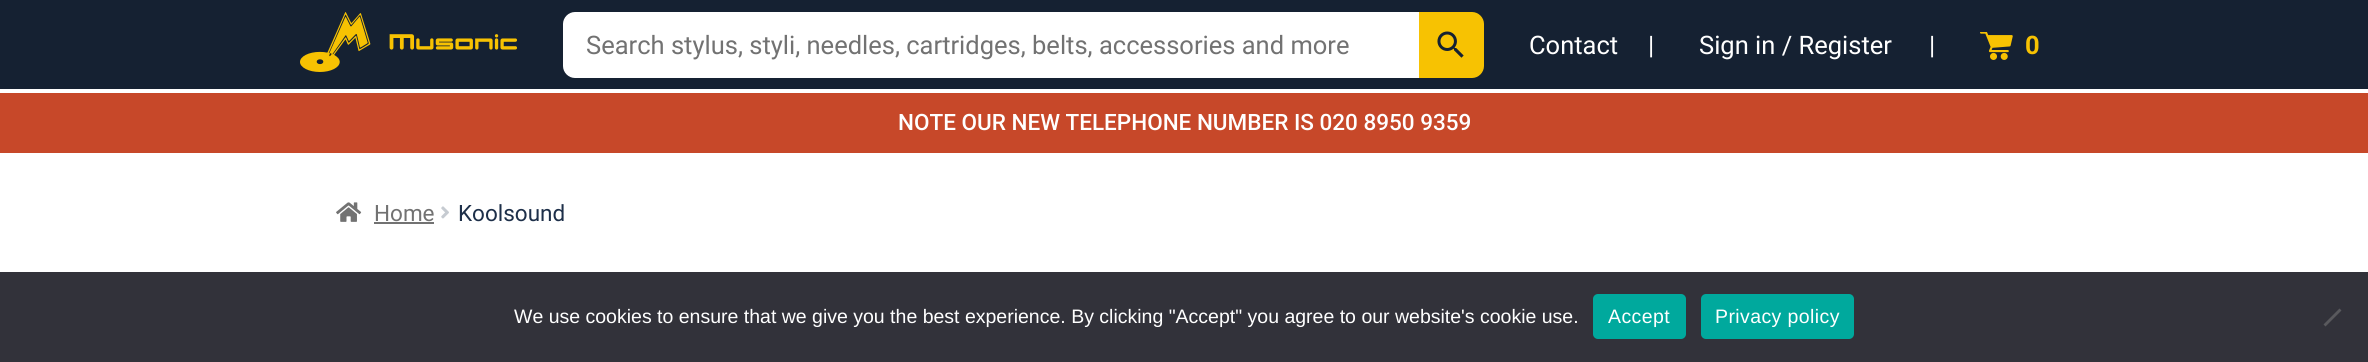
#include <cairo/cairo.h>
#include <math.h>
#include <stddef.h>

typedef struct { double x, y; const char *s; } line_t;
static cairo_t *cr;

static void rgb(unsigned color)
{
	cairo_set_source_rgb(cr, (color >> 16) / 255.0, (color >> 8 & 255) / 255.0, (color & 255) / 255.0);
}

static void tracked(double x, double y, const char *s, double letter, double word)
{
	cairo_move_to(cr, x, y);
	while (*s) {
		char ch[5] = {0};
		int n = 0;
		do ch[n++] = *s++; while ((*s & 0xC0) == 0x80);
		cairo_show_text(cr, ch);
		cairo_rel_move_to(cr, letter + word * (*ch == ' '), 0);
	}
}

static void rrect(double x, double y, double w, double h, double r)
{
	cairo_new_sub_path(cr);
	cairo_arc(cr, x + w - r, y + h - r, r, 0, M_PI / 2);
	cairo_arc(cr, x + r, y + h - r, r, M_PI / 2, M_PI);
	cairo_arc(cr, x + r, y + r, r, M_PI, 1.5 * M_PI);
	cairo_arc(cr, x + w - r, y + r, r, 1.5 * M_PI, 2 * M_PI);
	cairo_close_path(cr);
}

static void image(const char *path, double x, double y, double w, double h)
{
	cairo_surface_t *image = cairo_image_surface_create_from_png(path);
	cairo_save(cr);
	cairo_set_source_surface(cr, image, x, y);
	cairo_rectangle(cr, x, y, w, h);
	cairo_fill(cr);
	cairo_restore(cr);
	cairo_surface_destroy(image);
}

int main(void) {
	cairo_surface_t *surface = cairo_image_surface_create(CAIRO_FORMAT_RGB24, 2368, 362);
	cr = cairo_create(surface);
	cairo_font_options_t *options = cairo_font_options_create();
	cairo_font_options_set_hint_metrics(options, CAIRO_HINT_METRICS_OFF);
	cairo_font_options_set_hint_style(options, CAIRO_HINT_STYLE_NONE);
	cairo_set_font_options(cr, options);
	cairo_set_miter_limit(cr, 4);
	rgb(0xffffff);
	cairo_paint(cr);
	rgb(0x152132);
	cairo_rectangle(cr, 0, 0, 2368, 89);
	cairo_fill(cr);
	image("img/1.png", 300, 12, 217, 60);
	rgb(0xf7c202);
	cairo_new_path(cr);
	cairo_move_to(cr, 1418, 12);
	cairo_line_to(cr, 1472, 12);
	cairo_curve_to(cr, 1478.5, 12, 1484, 17.5, 1484, 24);
	cairo_line_to(cr, 1484, 66);
	cairo_curve_to(cr, 1484, 72.5, 1478.5, 78, 1472, 78);
	cairo_line_to(cr, 1418, 78);
	cairo_close_path(cr);
	cairo_fill(cr);
	rgb(0xffffff);
	cairo_new_path(cr);
	cairo_move_to(cr, 575, 12);
	cairo_line_to(cr, 1419, 12);
	cairo_line_to(cr, 1419, 78);
	cairo_line_to(cr, 575, 78);
	cairo_curve_to(cr, 568.5, 78, 563, 72.5, 563, 66);
	cairo_line_to(cr, 563, 24);
	cairo_curve_to(cr, 563, 17.5, 568.5, 12, 575, 12);
	cairo_close_path(cr);
	cairo_fill(cr);
	image("img/2.png", 1437, 31, 27, 27);
	image("img/3.png", 1980, 32, 33, 28);
	rgb(0xc74829);
	cairo_rectangle(cr, 0, 93, 2368, 60);
	cairo_fill(cr);
	image("img/4.png", 336, 202, 26, 20);
	rgb(0x727272);
	cairo_rectangle(cr, 374, 222, 60, 2);
	cairo_fill(cr);
	image("img/5.png", 441, 206, 8, 13);
	rgb(0x32323a);
	cairo_rectangle(cr, 0, 272, 2368, 90);
	cairo_fill(cr);
	rgb(0x00a99d);
	rrect(1593, 294, 93, 45, 5);
	cairo_fill(cr);
	rrect(1701, 294, 153, 45, 5);
	cairo_fill(cr);
	rgb(0x59595d);
	cairo_new_path(cr);
	cairo_move_to(cr, 2339.5, 308.5);
	cairo_line_to(cr, 2341.5, 310.5);
	cairo_line_to(cr, 2325.5, 326.5);
	cairo_line_to(cr, 2323.5, 324.5);
	cairo_close_path(cr);
	cairo_fill(cr);
	cairo_select_font_face(cr, "Roboto", CAIRO_FONT_SLANT_NORMAL, CAIRO_FONT_WEIGHT_NORMAL);
	cairo_set_font_size(cr, 25.5);
	rgb(0x727272);
	cairo_move_to(cr, 586, 54);
	cairo_show_text(cr, "Search stylus, styli, needles, cartridges, belts, accessories and more");
	rgb(0xffffff);
	{
		static const line_t items[] = {
			{1529, 54, "Contact"},
			{1648, 54, "|"},
			{1699, 54, "Sign in / Register"},
			{1929, 54, "|"},
		};
		for (size_t i = 0; i < sizeof items / sizeof *items; i++) {
			cairo_move_to(cr, items[i].x, items[i].y);
			cairo_show_text(cr, items[i].s);
		}
	}
	cairo_select_font_face(cr, "Roboto", CAIRO_FONT_SLANT_NORMAL, CAIRO_FONT_WEIGHT_BOLD);
	rgb(0xf7c202);
	cairo_move_to(cr, 2025, 54);
	cairo_show_text(cr, "0");
	cairo_select_font_face(cr, "Roboto Medium", CAIRO_FONT_SLANT_NORMAL, CAIRO_FONT_WEIGHT_NORMAL);
	cairo_set_font_size(cr, 22.5);
	rgb(0xffffff);
	cairo_move_to(cr, 898, 130);
	cairo_show_text(cr, "NOTE OUR NEW TELEPHONE NUMBER IS 020 8950 9359");
	cairo_select_font_face(cr, "Roboto", CAIRO_FONT_SLANT_NORMAL, CAIRO_FONT_WEIGHT_NORMAL);
	rgb(0x727272);
	cairo_move_to(cr, 374, 221);
	cairo_show_text(cr, "Home");
	rgb(0x1d2f49);
	cairo_move_to(cr, 458, 221);
	cairo_show_text(cr, "Koolsound");
	cairo_select_font_face(cr, "Liberation Sans", CAIRO_FONT_SLANT_NORMAL, CAIRO_FONT_WEIGHT_NORMAL);
	cairo_set_font_size(cr, 19.5);
	rgb(0xffffff);
	cairo_move_to(cr, 514, 323);
	cairo_show_text(cr, "We use cookies to ensure that we give you the best experience. By clicking \"Accept\" you agree to our website's cookie use.");
	tracked(1608, 323, "Accept", 0.4, 0);
	tracked(1715, 323, "Privacy policy", 0.4, 0);
	cairo_surface_write_to_png(surface, "page.png");
	cairo_font_options_destroy(options);
	cairo_destroy(cr);
	cairo_surface_destroy(surface);
	return 0;
}
